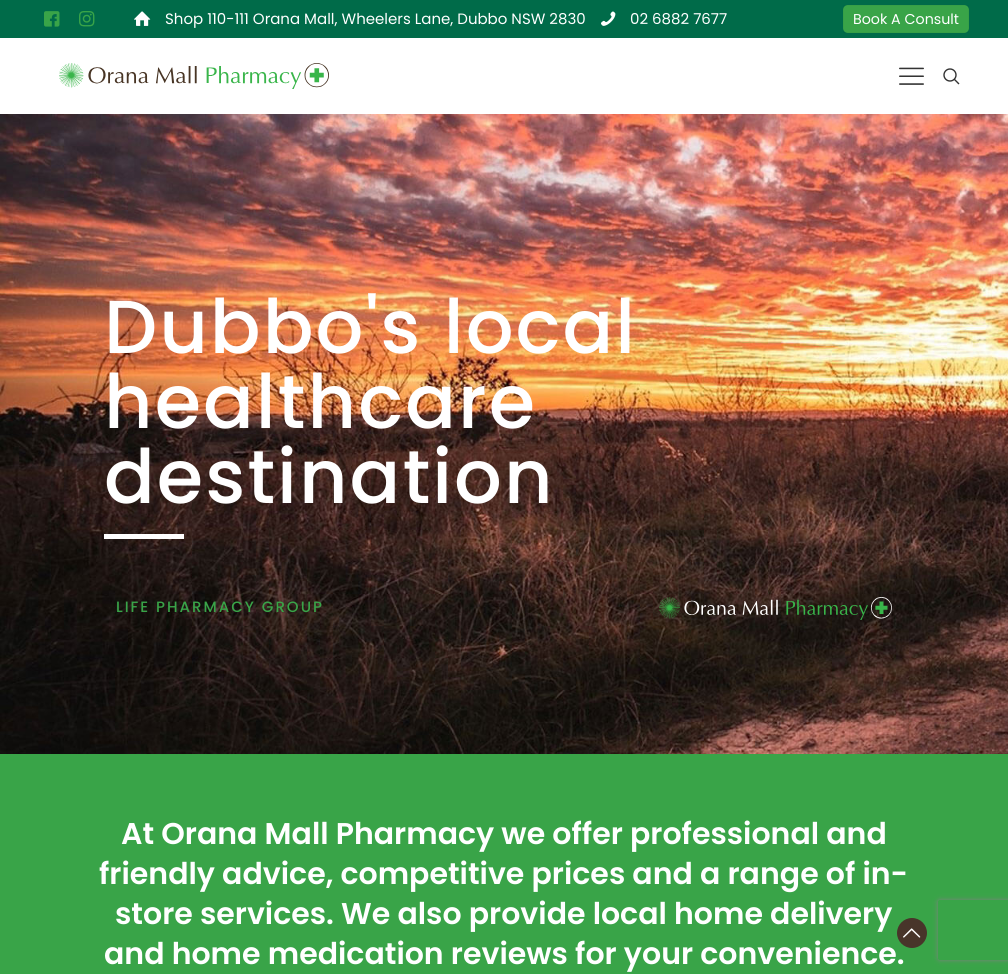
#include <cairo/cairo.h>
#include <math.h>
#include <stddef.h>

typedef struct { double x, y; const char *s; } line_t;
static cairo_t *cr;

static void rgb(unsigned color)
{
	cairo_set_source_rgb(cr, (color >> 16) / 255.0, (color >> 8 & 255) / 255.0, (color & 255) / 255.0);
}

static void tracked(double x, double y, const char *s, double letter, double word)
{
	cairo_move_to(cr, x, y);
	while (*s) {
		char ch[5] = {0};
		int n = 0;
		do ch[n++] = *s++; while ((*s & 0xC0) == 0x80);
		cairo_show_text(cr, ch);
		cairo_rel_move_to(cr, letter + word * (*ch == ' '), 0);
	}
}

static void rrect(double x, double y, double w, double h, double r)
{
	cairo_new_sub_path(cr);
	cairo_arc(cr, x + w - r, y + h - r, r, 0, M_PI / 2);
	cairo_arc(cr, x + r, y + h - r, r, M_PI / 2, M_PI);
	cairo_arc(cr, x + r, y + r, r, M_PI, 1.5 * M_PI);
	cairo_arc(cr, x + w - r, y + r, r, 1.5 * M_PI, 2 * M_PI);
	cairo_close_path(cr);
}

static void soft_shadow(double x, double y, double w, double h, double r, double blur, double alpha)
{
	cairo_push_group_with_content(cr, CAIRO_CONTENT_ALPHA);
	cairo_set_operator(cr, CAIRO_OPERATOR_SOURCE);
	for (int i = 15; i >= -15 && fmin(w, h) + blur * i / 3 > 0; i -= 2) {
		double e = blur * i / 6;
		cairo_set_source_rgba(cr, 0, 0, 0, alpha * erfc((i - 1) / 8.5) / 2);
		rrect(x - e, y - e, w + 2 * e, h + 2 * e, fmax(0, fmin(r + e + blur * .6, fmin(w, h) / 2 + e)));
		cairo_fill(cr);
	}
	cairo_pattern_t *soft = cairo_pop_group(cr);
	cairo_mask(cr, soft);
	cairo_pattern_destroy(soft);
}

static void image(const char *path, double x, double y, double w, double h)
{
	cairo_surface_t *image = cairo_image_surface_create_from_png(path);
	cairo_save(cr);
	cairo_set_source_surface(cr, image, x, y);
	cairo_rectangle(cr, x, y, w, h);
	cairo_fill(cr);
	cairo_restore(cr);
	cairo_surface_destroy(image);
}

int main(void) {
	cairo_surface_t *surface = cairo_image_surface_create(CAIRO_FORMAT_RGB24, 1008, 974);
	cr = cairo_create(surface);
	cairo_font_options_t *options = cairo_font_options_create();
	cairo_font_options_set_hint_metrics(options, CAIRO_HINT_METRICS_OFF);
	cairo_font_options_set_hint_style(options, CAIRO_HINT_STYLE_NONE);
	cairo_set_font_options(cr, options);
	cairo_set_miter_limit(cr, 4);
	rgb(0xffffff);
	cairo_paint(cr);
	rgb(0x006b49);
	cairo_rectangle(cr, 0, 0, 1008, 38);
	cairo_fill(cr);
	image("img/1.png", 44, 11, 16, 16);
	image("img/2.png", 79, 11, 16, 16);
	image("img/3.png", 134, 11, 17, 15);
	image("img/4.png", 601, 11, 15, 15);
	rgb(0x39a448);
	rrect(843, 5, 126, 28, 5);
	cairo_fill(cr);
	cairo_rectangle(cr, 843.5, 5.5, 125, 27);
	cairo_set_source_rgba(cr, 0, 0, 0, 0.03);
	cairo_set_line_width(cr, 1);
	cairo_stroke(cr);
	image("img/5.png", 59, 63, 270, 26);
	image("img/6.png", 899, 67, 25, 18);
	cairo_arc(cr, 950, 75, 6, 0, 2 * M_PI);
	rgb(0x333333);
	cairo_set_line_width(cr, 1.4);
	cairo_stroke(cr);
	cairo_new_path(cr);
	cairo_move_to(cr, 954, 79);
	cairo_line_to(cr, 959, 84);
	cairo_stroke(cr);
	image("img/7.png", 0, 114, 1008, 640);
	rgb(0xffffff);
	cairo_rectangle(cr, 104, 534, 80, 5);
	cairo_fill(cr);
	image("img/8.png", 659, 597, 233, 23);
	rgb(0x39a448);
	cairo_rectangle(cr, 0, 754, 1008, 220);
	cairo_fill(cr);
	cairo_save(cr);
	cairo_set_fill_rule(cr, CAIRO_FILL_RULE_EVEN_ODD);
	cairo_new_path(cr);
	cairo_move_to(cr, 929, 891);
	cairo_line_to(cr, 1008, 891);
	cairo_line_to(cr, 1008, 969);
	cairo_line_to(cr, 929, 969);
	cairo_close_path(cr);
	cairo_move_to(cr, 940, 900);
	cairo_line_to(cr, 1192, 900);
	cairo_curve_to(cr, 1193, 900, 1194, 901, 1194, 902);
	cairo_line_to(cr, 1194, 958);
	cairo_curve_to(cr, 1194, 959, 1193, 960, 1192, 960);
	cairo_line_to(cr, 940, 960);
	cairo_curve_to(cr, 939, 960, 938, 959, 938, 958);
	cairo_line_to(cr, 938, 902);
	cairo_curve_to(cr, 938, 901, 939, 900, 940, 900);
	cairo_close_path(cr);
	cairo_clip(cr);
	rgb(0x808080);
	soft_shadow(938, 900, 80, 60, 2, 2.5, 1);
	cairo_restore(cr);
	cairo_select_font_face(cr, "Poppins", CAIRO_FONT_SLANT_NORMAL, CAIRO_FONT_WEIGHT_NORMAL);
	cairo_set_font_size(cr, 15);
	rgb(0xffffff);
	cairo_move_to(cr, 165, 24);
	cairo_show_text(cr, "Shop 110-111 Orana Mall, Wheelers Lane, Dubbo NSW 2830");
	cairo_move_to(cr, 630, 24);
	cairo_show_text(cr, "02 6882 7677");
	cairo_set_font_size(cr, 14.25);
	cairo_move_to(cr, 853, 24);
	cairo_show_text(cr, "Book A Consult");
	cairo_select_font_face(cr, "Poppins Medium", CAIRO_FONT_SLANT_NORMAL, CAIRO_FONT_WEIGHT_NORMAL);
	cairo_set_font_size(cr, 75);
	{
		static const line_t items[] = {
			{104, 353, "Dubbo's local"},
			{104, 428, "healthcare"},
			{104, 503, "destination"},
		};
		for (size_t i = 0; i < sizeof items / sizeof *items; i++) {
			tracked(items[i].x, items[i].y, items[i].s, 2, 0);
		}
	}
	cairo_set_font_size(cr, 15);
	rgb(0x39a448);
	tracked(116, 612, "LIFE PHARMACY GROUP", 2, 0);
	cairo_select_font_face(cr, "Poppins SemiBold", CAIRO_FONT_SLANT_NORMAL, CAIRO_FONT_WEIGHT_NORMAL);
	cairo_set_font_size(cr, 30);
	rgb(0xffffff);
	{
		static const line_t items[] = {
			{121, 844, "At Orana Mall Pharmacy we offer professional and"},
			{99, 884, "friendly advice, competitive prices and a range of in-"},
			{115, 924, "store services. We also provide local home delivery"},
			{104, 964, "and home medication reviews for your convenience."},
		};
		for (size_t i = 0; i < sizeof items / sizeof *items; i++) {
			cairo_move_to(cr, items[i].x, items[i].y);
			cairo_show_text(cr, items[i].s);
		}
	}
	rgb(0x48352a);
	cairo_new_path(cr);
	cairo_arc(cr, 912, 933, 15, 0, 2 * M_PI);
	cairo_fill(cr);
	image("img/9.png", 903, 928, 18, 10);
	cairo_surface_write_to_png(surface, "page.png");
	cairo_font_options_destroy(options);
	cairo_destroy(cr);
	cairo_surface_destroy(surface);
	return 0;
}
